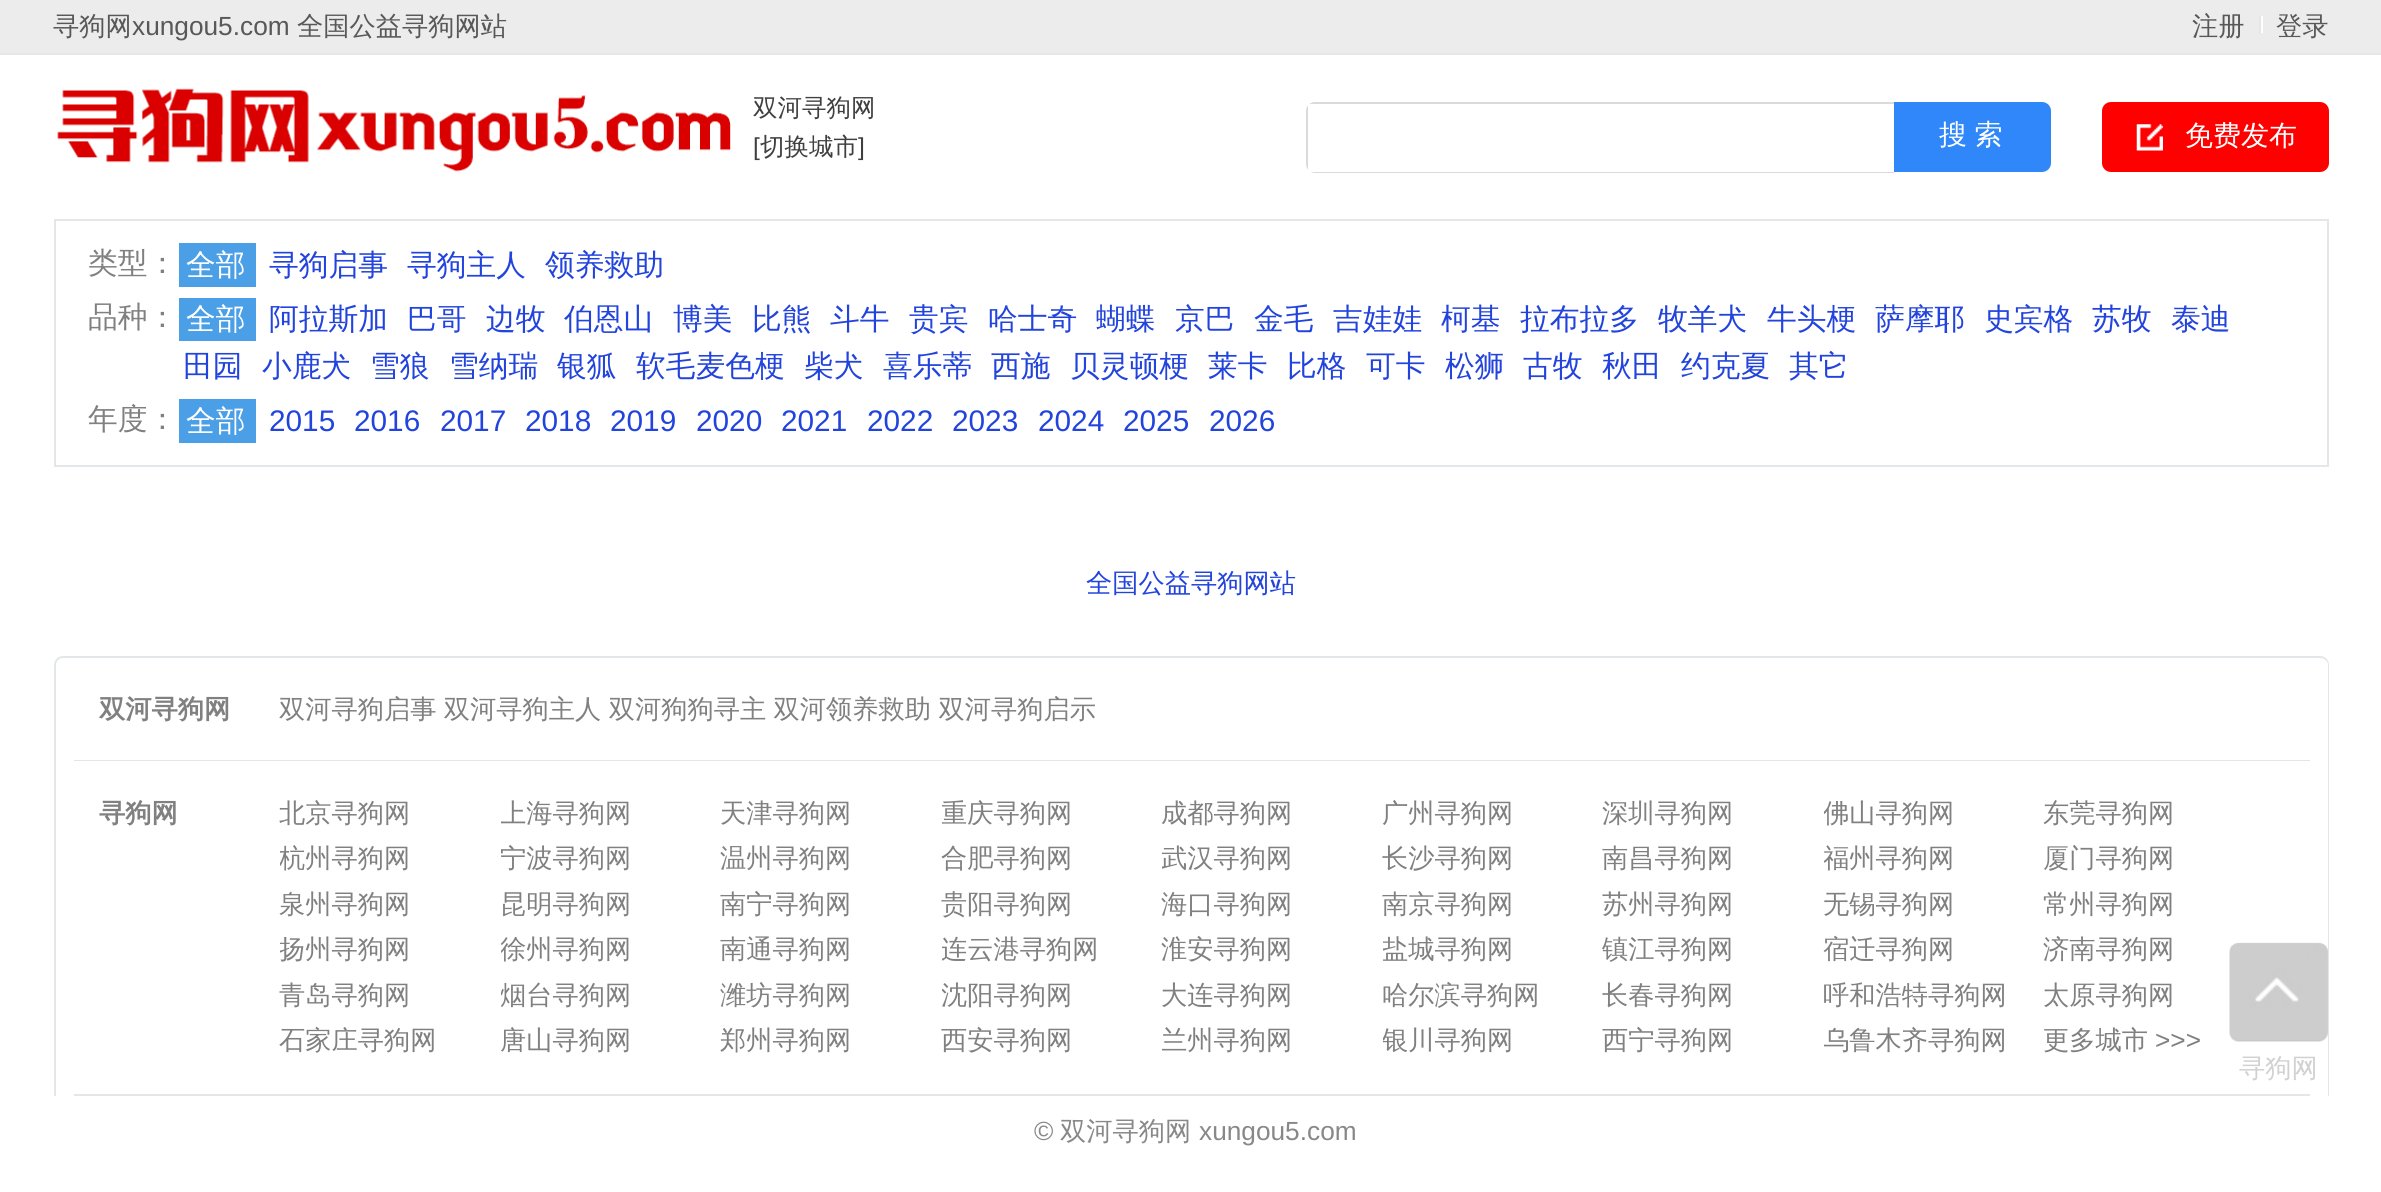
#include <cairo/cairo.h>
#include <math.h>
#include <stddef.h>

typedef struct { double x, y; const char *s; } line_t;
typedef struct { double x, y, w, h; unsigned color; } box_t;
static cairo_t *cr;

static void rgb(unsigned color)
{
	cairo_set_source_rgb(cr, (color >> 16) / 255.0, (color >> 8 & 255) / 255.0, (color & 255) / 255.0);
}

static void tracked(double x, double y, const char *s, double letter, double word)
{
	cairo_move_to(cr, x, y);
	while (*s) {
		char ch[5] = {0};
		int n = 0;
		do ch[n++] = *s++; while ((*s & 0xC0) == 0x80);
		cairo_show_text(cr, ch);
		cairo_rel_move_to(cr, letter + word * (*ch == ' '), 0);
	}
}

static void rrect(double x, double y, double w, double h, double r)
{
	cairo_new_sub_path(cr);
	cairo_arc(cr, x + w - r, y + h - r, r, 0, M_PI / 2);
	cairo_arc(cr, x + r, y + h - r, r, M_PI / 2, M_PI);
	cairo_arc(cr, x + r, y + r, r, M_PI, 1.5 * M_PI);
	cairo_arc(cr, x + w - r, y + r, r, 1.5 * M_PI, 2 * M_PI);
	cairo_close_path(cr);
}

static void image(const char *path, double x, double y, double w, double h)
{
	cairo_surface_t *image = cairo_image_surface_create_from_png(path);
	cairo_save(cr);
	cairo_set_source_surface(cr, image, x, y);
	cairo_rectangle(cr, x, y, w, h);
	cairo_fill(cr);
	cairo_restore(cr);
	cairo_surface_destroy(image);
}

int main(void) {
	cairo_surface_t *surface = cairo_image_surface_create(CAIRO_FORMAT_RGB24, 2381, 1192);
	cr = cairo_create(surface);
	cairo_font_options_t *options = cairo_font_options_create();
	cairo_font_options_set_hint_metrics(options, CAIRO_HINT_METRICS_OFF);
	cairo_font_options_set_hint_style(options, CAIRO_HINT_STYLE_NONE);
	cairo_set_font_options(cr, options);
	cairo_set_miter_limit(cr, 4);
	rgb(0xffffff);
	cairo_paint(cr);
	{
		static const box_t items[] = {
			{0, 0, 2381, 53, 0xedecec},
			{0, 53, 2381, 2, 0xe3e7e9},
			{2261, 16, 2, 17, 0xffffff},
			{2259, 16, 2, 17, 0xe3e7e9},
		};
		for (size_t i = 0; i < sizeof items / sizeof *items; i++) {
			rgb(items[i].color);
			cairo_rectangle(cr, items[i].x, items[i].y, items[i].w, items[i].h);
			cairo_fill(cr);
		}
	}
	image("img/1.png", 57, 88, 674, 84);
	cairo_save(cr);
	cairo_new_path(cr);
	cairo_move_to(cr, 1315, 102);
	cairo_line_to(cr, 2093, 102);
	cairo_line_to(cr, 2093, 173);
	cairo_line_to(cr, 1315, 173);
	cairo_curve_to(cr, 1310, 173, 1306, 169, 1306, 164);
	cairo_line_to(cr, 1306, 111);
	cairo_curve_to(cr, 1306, 106, 1310, 102, 1315, 102);
	cairo_close_path(cr);
	cairo_clip(cr);
	{
		static const box_t items[] = {
			{1306, 102, 588, 2, 0xdadada},
			{1306, 172, 588, 1, 0xdadada},
			{1306, 102, 2, 71, 0xdadada},
		};
		for (size_t i = 0; i < sizeof items / sizeof *items; i++) {
			rgb(items[i].color);
			cairo_rectangle(cr, items[i].x, items[i].y, items[i].w, items[i].h);
			cairo_fill(cr);
		}
	}
	cairo_restore(cr);
	rgb(0x2f87f9);
	cairo_new_path(cr);
	cairo_move_to(cr, 1894, 102);
	cairo_line_to(cr, 2042, 102);
	cairo_curve_to(cr, 2047, 102, 2051, 106, 2051, 111);
	cairo_line_to(cr, 2051, 163);
	cairo_curve_to(cr, 2051, 168, 2047, 172, 2042, 172);
	cairo_line_to(cr, 1894, 172);
	cairo_close_path(cr);
	cairo_fill(cr);
	rgb(0xff0000);
	rrect(2102, 102, 227, 70, 9);
	cairo_fill(cr);
	image("img/2.png", 2136, 124, 27, 27);
	cairo_rectangle(cr, 55, 220, 2273, 246);
	rgb(0xe3e7e9);
	cairo_stroke(cr);
	{
		static const box_t items[] = {
			{179, 243, 77, 44, 0x4b9fe7},
			{179, 298, 77, 43, 0x4b9fe7},
			{179, 399, 77, 44, 0x4b9fe7},
		};
		for (size_t i = 0; i < sizeof items / sizeof *items; i++) {
			rgb(items[i].color);
			cairo_rectangle(cr, items[i].x, items[i].y, items[i].w, items[i].h);
			cairo_fill(cr);
		}
	}
	rgb(0xe3e7e9);
	cairo_set_fill_rule(cr, CAIRO_FILL_RULE_EVEN_ODD);
	cairo_new_path(cr);
	cairo_move_to(cr, 63, 656);
	cairo_line_to(cr, 2320, 656);
	cairo_curve_to(cr, 2325, 656, 2329, 660, 2329, 665);
	cairo_line_to(cr, 2329, 1096);
	cairo_line_to(cr, 54, 1096);
	cairo_line_to(cr, 54, 665);
	cairo_curve_to(cr, 54, 660, 58, 656, 63, 656);
	cairo_close_path(cr);
	cairo_move_to(cr, 63, 658);
	cairo_line_to(cr, 2320, 658);
	cairo_curve_to(cr, 2324, 658, 2328, 661, 2328, 665);
	cairo_line_to(cr, 2328, 1096);
	cairo_line_to(cr, 56, 1096);
	cairo_line_to(cr, 56, 665);
	cairo_curve_to(cr, 56, 661, 59, 658, 63, 658);
	cairo_close_path(cr);
	cairo_fill(cr);
	cairo_rectangle(cr, 74, 760, 2236, 1);
	cairo_fill(cr);
	cairo_rectangle(cr, 74, 1094, 2236, 2);
	cairo_fill(cr);
	rgb(0xd1d1d1);
	rrect(2230, 943, 98, 98, 9);
	cairo_fill(cr);
	image("img/3.png", 2229, 942, 99, 100);
	cairo_select_font_face(cr, "WenQuanYi Zen Hei Medium", CAIRO_FONT_SLANT_NORMAL, CAIRO_FONT_WEIGHT_NORMAL);
	cairo_set_font_size(cr, 26.25);
	rgb(0x585858);
	cairo_move_to(cr, 53, 35);
	cairo_show_text(cr, "寻狗网");
	cairo_select_font_face(cr, "Liberation Sans", CAIRO_FONT_SLANT_NORMAL, CAIRO_FONT_WEIGHT_NORMAL);
	cairo_move_to(cr, 132, 35);
	cairo_show_text(cr, "xungou5.com");
	cairo_select_font_face(cr, "WenQuanYi Zen Hei Medium", CAIRO_FONT_SLANT_NORMAL, CAIRO_FONT_WEIGHT_NORMAL);
	{
		static const line_t items[] = {
			{297, 35, "全国公益寻狗网站"},
			{2192, 35, "注册"},
			{2276, 35, "登录"},
		};
		for (size_t i = 0; i < sizeof items / sizeof *items; i++) {
			cairo_move_to(cr, items[i].x, items[i].y);
			cairo_show_text(cr, items[i].s);
		}
	}
	cairo_set_font_size(cr, 24.5);
	rgb(0x3f3f3f);
	cairo_move_to(cr, 753, 116);
	cairo_show_text(cr, "双河寻狗网");
	cairo_select_font_face(cr, "Liberation Sans", CAIRO_FONT_SLANT_NORMAL, CAIRO_FONT_WEIGHT_NORMAL);
	cairo_move_to(cr, 753, 155);
	cairo_show_text(cr, "[");
	cairo_select_font_face(cr, "WenQuanYi Zen Hei Medium", CAIRO_FONT_SLANT_NORMAL, CAIRO_FONT_WEIGHT_NORMAL);
	cairo_move_to(cr, 760, 155);
	cairo_show_text(cr, "切换城市");
	cairo_select_font_face(cr, "Liberation Sans", CAIRO_FONT_SLANT_NORMAL, CAIRO_FONT_WEIGHT_NORMAL);
	cairo_move_to(cr, 858, 155);
	cairo_show_text(cr, "]");
	cairo_select_font_face(cr, "WenQuanYi Zen Hei Medium", CAIRO_FONT_SLANT_NORMAL, CAIRO_FONT_WEIGHT_NORMAL);
	cairo_set_font_size(cr, 28);
	rgb(0xffffff);
	tracked(1939, 144, "搜 索", 0, -1);
	cairo_move_to(cr, 2185, 145);
	cairo_show_text(cr, "免费发布");
	cairo_set_font_size(cr, 29.75);
	rgb(0x808080);
	cairo_move_to(cr, 88, 273);
	cairo_show_text(cr, "类型：");
	rgb(0xffffff);
	cairo_move_to(cr, 186, 275);
	cairo_show_text(cr, "全部");
	rgb(0x2244dd);
	{
		static const line_t items[] = {
			{269, 275, "寻狗启事"},
			{407, 275, "寻狗主人"},
			{545, 275, "领养救助"},
		};
		for (size_t i = 0; i < sizeof items / sizeof *items; i++) {
			cairo_move_to(cr, items[i].x, items[i].y);
			cairo_show_text(cr, items[i].s);
		}
	}
	rgb(0x808080);
	cairo_move_to(cr, 88, 327);
	cairo_show_text(cr, "品种：");
	rgb(0xffffff);
	cairo_move_to(cr, 186, 329);
	cairo_show_text(cr, "全部");
	rgb(0x2244dd);
	{
		static const line_t items[] = {
			{269, 329, "阿拉斯加"},
			{407, 329, "巴哥"},
			{486, 329, "边牧"},
			{564, 329, "伯恩山"},
			{673, 329, "博美"},
			{752, 329, "比熊"},
			{830, 329, "斗牛"},
			{909, 329, "贵宾"},
			{988, 329, "哈士奇"},
			{1096, 329, "蝴蝶"},
			{1175, 329, "京巴"},
			{1254, 329, "金毛"},
			{1333, 329, "吉娃娃"},
			{1441, 329, "柯基"},
			{1520, 329, "拉布拉多"},
			{1658, 329, "牧羊犬"},
			{1767, 329, "牛头梗"},
			{1875, 329, "萨摩耶"},
			{1984, 329, "史宾格"},
			{2092, 329, "苏牧"},
			{2171, 329, "泰迪"},
			{183, 376, "田园"},
			{262, 376, "小鹿犬"},
			{370, 376, "雪狼"},
			{449, 376, "雪纳瑞"},
			{557, 376, "银狐"},
			{636, 376, "软毛麦色梗"},
			{804, 376, "柴犬"},
			{883, 376, "喜乐蒂"},
			{991, 376, "西施"},
			{1070, 376, "贝灵顿梗"},
			{1208, 376, "莱卡"},
			{1287, 376, "比格"},
			{1366, 376, "可卡"},
			{1445, 376, "松狮"},
			{1523, 376, "古牧"},
			{1602, 376, "秋田"},
			{1681, 376, "约克夏"},
			{1789, 376, "其它"},
		};
		for (size_t i = 0; i < sizeof items / sizeof *items; i++) {
			cairo_move_to(cr, items[i].x, items[i].y);
			cairo_show_text(cr, items[i].s);
		}
	}
	rgb(0x808080);
	cairo_move_to(cr, 88, 429);
	cairo_show_text(cr, "年度：");
	rgb(0xffffff);
	cairo_move_to(cr, 186, 431);
	cairo_show_text(cr, "全部");
	cairo_select_font_face(cr, "Liberation Sans", CAIRO_FONT_SLANT_NORMAL, CAIRO_FONT_WEIGHT_NORMAL);
	rgb(0x2244dd);
	{
		static const line_t items[] = {
			{269, 431, "2015"},
			{354, 431, "2016"},
			{440, 431, "2017"},
			{525, 431, "2018"},
			{610, 431, "2019"},
			{696, 431, "2020"},
			{781, 431, "2021"},
			{867, 431, "2022"},
			{952, 431, "2023"},
			{1038, 431, "2024"},
			{1123, 431, "2025"},
			{1209, 431, "2026"},
		};
		for (size_t i = 0; i < sizeof items / sizeof *items; i++) {
			cairo_move_to(cr, items[i].x, items[i].y);
			cairo_show_text(cr, items[i].s);
		}
	}
	cairo_select_font_face(cr, "WenQuanYi Zen Hei Medium", CAIRO_FONT_SLANT_NORMAL, CAIRO_FONT_WEIGHT_NORMAL);
	cairo_set_font_size(cr, 26.25);
	cairo_move_to(cr, 1086, 592);
	cairo_show_text(cr, "全国公益寻狗网站");
	cairo_select_font_face(cr, "WenQuanYi Zen Hei", CAIRO_FONT_SLANT_NORMAL, CAIRO_FONT_WEIGHT_BOLD);
	rgb(0x808080);
	cairo_move_to(cr, 99, 718);
	cairo_show_text(cr, "双河寻狗网");
	cairo_select_font_face(cr, "WenQuanYi Zen Hei Medium", CAIRO_FONT_SLANT_NORMAL, CAIRO_FONT_WEIGHT_NORMAL);
	tracked(279, 718, "双河寻狗启事 双河寻狗主人 双河狗狗寻主 双河领养救助 双河寻狗启示", 0, -0.5);
	cairo_select_font_face(cr, "WenQuanYi Zen Hei", CAIRO_FONT_SLANT_NORMAL, CAIRO_FONT_WEIGHT_BOLD);
	cairo_move_to(cr, 99, 822);
	cairo_show_text(cr, "寻狗网");
	cairo_select_font_face(cr, "WenQuanYi Zen Hei Medium", CAIRO_FONT_SLANT_NORMAL, CAIRO_FONT_WEIGHT_NORMAL);
	cairo_move_to(cr, 279, 822);
	cairo_show_text(cr, "北京寻狗网");
	cairo_save(cr);
	cairo_set_fill_rule(cr, CAIRO_FILL_RULE_WINDING);
	cairo_rectangle(cr, 501, 793, 220, 45);
	cairo_clip(cr);
	cairo_move_to(cr, 500, 822);
	cairo_show_text(cr, "上海寻狗网");
	cairo_restore(cr);
	cairo_move_to(cr, 720, 822);
	cairo_show_text(cr, "天津寻狗网");
	cairo_save(cr);
	cairo_set_fill_rule(cr, CAIRO_FILL_RULE_WINDING);
	cairo_rectangle(cr, 942, 793, 220, 45);
	cairo_clip(cr);
	cairo_move_to(cr, 941, 822);
	cairo_show_text(cr, "重庆寻狗网");
	cairo_restore(cr);
	{
		static const line_t items[] = {
			{1161, 822, "成都寻狗网"},
			{1382, 822, "广州寻狗网"},
			{1602, 822, "深圳寻狗网"},
		};
		for (size_t i = 0; i < sizeof items / sizeof *items; i++) {
			cairo_move_to(cr, items[i].x, items[i].y);
			cairo_show_text(cr, items[i].s);
		}
	}
	cairo_save(cr);
	cairo_set_fill_rule(cr, CAIRO_FILL_RULE_WINDING);
	cairo_rectangle(cr, 1824, 793, 220, 45);
	cairo_clip(cr);
	cairo_move_to(cr, 1823, 822);
	cairo_show_text(cr, "佛山寻狗网");
	cairo_restore(cr);
	cairo_move_to(cr, 2043, 822);
	cairo_show_text(cr, "东莞寻狗网");
	cairo_save(cr);
	cairo_set_fill_rule(cr, CAIRO_FILL_RULE_WINDING);
	cairo_rectangle(cr, 280, 838, 221, 46);
	cairo_clip(cr);
	cairo_move_to(cr, 279, 867);
	cairo_show_text(cr, "杭州寻狗网");
	cairo_restore(cr);
	cairo_save(cr);
	cairo_set_fill_rule(cr, CAIRO_FILL_RULE_WINDING);
	cairo_rectangle(cr, 501, 838, 220, 46);
	cairo_clip(cr);
	cairo_move_to(cr, 500, 867);
	cairo_show_text(cr, "宁波寻狗网");
	cairo_restore(cr);
	cairo_move_to(cr, 720, 867);
	cairo_show_text(cr, "温州寻狗网");
	cairo_move_to(cr, 941, 867);
	cairo_show_text(cr, "合肥寻狗网");
	cairo_save(cr);
	cairo_set_fill_rule(cr, CAIRO_FILL_RULE_WINDING);
	cairo_rectangle(cr, 1162, 838, 221, 46);
	cairo_clip(cr);
	cairo_move_to(cr, 1161, 867);
	cairo_show_text(cr, "武汉寻狗网");
	cairo_restore(cr);
	cairo_move_to(cr, 1382, 867);
	cairo_show_text(cr, "长沙寻狗网");
	cairo_move_to(cr, 1602, 867);
	cairo_show_text(cr, "南昌寻狗网");
	cairo_save(cr);
	cairo_set_fill_rule(cr, CAIRO_FILL_RULE_WINDING);
	cairo_rectangle(cr, 1824, 838, 220, 46);
	cairo_clip(cr);
	cairo_move_to(cr, 1823, 867);
	cairo_show_text(cr, "福州寻狗网");
	cairo_restore(cr);
	{
		static const line_t items[] = {
			{2043, 867, "厦门寻狗网"},
			{279, 913, "泉州寻狗网"},
			{500, 913, "昆明寻狗网"},
			{720, 913, "南宁寻狗网"},
			{941, 913, "贵阳寻狗网"},
			{1161, 913, "海口寻狗网"},
			{1382, 913, "南京寻狗网"},
			{1602, 913, "苏州寻狗网"},
			{1823, 913, "无锡寻狗网"},
			{2043, 913, "常州寻狗网"},
		};
		for (size_t i = 0; i < sizeof items / sizeof *items; i++) {
			cairo_move_to(cr, items[i].x, items[i].y);
			cairo_show_text(cr, items[i].s);
		}
	}
	cairo_save(cr);
	cairo_set_fill_rule(cr, CAIRO_FILL_RULE_WINDING);
	cairo_rectangle(cr, 280, 929, 221, 46);
	cairo_clip(cr);
	cairo_move_to(cr, 279, 958);
	cairo_show_text(cr, "扬州寻狗网");
	cairo_restore(cr);
	cairo_save(cr);
	cairo_set_fill_rule(cr, CAIRO_FILL_RULE_WINDING);
	cairo_rectangle(cr, 501, 929, 220, 46);
	cairo_clip(cr);
	cairo_move_to(cr, 500, 958);
	cairo_show_text(cr, "徐州寻狗网");
	cairo_restore(cr);
	cairo_move_to(cr, 720, 958);
	cairo_show_text(cr, "南通寻狗网");
	cairo_save(cr);
	cairo_set_fill_rule(cr, CAIRO_FILL_RULE_WINDING);
	cairo_rectangle(cr, 942, 929, 220, 46);
	cairo_clip(cr);
	cairo_move_to(cr, 941, 958);
	cairo_show_text(cr, "连云港寻狗网");
	cairo_restore(cr);
	cairo_move_to(cr, 1161, 958);
	cairo_show_text(cr, "淮安寻狗网");
	cairo_save(cr);
	cairo_set_fill_rule(cr, CAIRO_FILL_RULE_WINDING);
	cairo_rectangle(cr, 1383, 929, 220, 46);
	cairo_clip(cr);
	cairo_move_to(cr, 1382, 958);
	cairo_show_text(cr, "盐城寻狗网");
	cairo_restore(cr);
	{
		static const line_t items[] = {
			{1602, 958, "镇江寻狗网"},
			{1823, 958, "宿迁寻狗网"},
			{2043, 958, "济南寻狗网"},
			{279, 1004, "青岛寻狗网"},
		};
		for (size_t i = 0; i < sizeof items / sizeof *items; i++) {
			cairo_move_to(cr, items[i].x, items[i].y);
			cairo_show_text(cr, items[i].s);
		}
	}
	cairo_save(cr);
	cairo_set_fill_rule(cr, CAIRO_FILL_RULE_WINDING);
	cairo_rectangle(cr, 501, 975, 220, 45);
	cairo_clip(cr);
	cairo_move_to(cr, 500, 1004);
	cairo_show_text(cr, "烟台寻狗网");
	cairo_restore(cr);
	cairo_move_to(cr, 720, 1004);
	cairo_show_text(cr, "潍坊寻狗网");
	cairo_save(cr);
	cairo_set_fill_rule(cr, CAIRO_FILL_RULE_WINDING);
	cairo_rectangle(cr, 942, 975, 220, 45);
	cairo_clip(cr);
	cairo_move_to(cr, 941, 1004);
	cairo_show_text(cr, "沈阳寻狗网");
	cairo_restore(cr);
	{
		static const line_t items[] = {
			{1161, 1004, "大连寻狗网"},
			{1382, 1004, "哈尔滨寻狗网"},
			{1602, 1004, "长春寻狗网"},
		};
		for (size_t i = 0; i < sizeof items / sizeof *items; i++) {
			cairo_move_to(cr, items[i].x, items[i].y);
			cairo_show_text(cr, items[i].s);
		}
	}
	cairo_save(cr);
	cairo_set_fill_rule(cr, CAIRO_FILL_RULE_WINDING);
	cairo_rectangle(cr, 1824, 975, 220, 45);
	cairo_clip(cr);
	cairo_move_to(cr, 1823, 1004);
	cairo_show_text(cr, "呼和浩特寻狗网");
	cairo_restore(cr);
	{
		static const line_t items[] = {
			{2043, 1004, "太原寻狗网"},
			{279, 1049, "石家庄寻狗网"},
			{500, 1049, "唐山寻狗网"},
			{720, 1049, "郑州寻狗网"},
			{941, 1049, "西安寻狗网"},
		};
		for (size_t i = 0; i < sizeof items / sizeof *items; i++) {
			cairo_move_to(cr, items[i].x, items[i].y);
			cairo_show_text(cr, items[i].s);
		}
	}
	cairo_save(cr);
	cairo_set_fill_rule(cr, CAIRO_FILL_RULE_WINDING);
	cairo_rectangle(cr, 1162, 1020, 221, 46);
	cairo_clip(cr);
	cairo_move_to(cr, 1161, 1049);
	cairo_show_text(cr, "兰州寻狗网");
	cairo_restore(cr);
	cairo_save(cr);
	cairo_set_fill_rule(cr, CAIRO_FILL_RULE_WINDING);
	cairo_rectangle(cr, 1383, 1020, 220, 46);
	cairo_clip(cr);
	cairo_move_to(cr, 1382, 1049);
	cairo_show_text(cr, "银川寻狗网");
	cairo_restore(cr);
	cairo_move_to(cr, 1602, 1049);
	cairo_show_text(cr, "西宁寻狗网");
	cairo_save(cr);
	cairo_set_fill_rule(cr, CAIRO_FILL_RULE_WINDING);
	cairo_rectangle(cr, 1824, 1020, 220, 46);
	cairo_clip(cr);
	cairo_move_to(cr, 1823, 1049);
	cairo_show_text(cr, "乌鲁木齐寻狗网");
	cairo_restore(cr);
	cairo_move_to(cr, 2043, 1049);
	cairo_show_text(cr, "更多城市");
	cairo_select_font_face(cr, "Liberation Sans", CAIRO_FONT_SLANT_NORMAL, CAIRO_FONT_WEIGHT_NORMAL);
	cairo_move_to(cr, 2155, 1049);
	cairo_show_text(cr, ">>>");
	cairo_select_font_face(cr, "WenQuanYi Zen Hei Medium", CAIRO_FONT_SLANT_NORMAL, CAIRO_FONT_WEIGHT_NORMAL);
	rgb(0xd1d1d1);
	cairo_move_to(cr, 2239, 1077);
	cairo_show_text(cr, "寻狗网");
	cairo_select_font_face(cr, "Liberation Sans", CAIRO_FONT_SLANT_NORMAL, CAIRO_FONT_WEIGHT_NORMAL);
	rgb(0x888888);
	cairo_move_to(cr, 1034, 1140);
	cairo_show_text(cr, "©");
	cairo_select_font_face(cr, "WenQuanYi Zen Hei Medium", CAIRO_FONT_SLANT_NORMAL, CAIRO_FONT_WEIGHT_NORMAL);
	cairo_move_to(cr, 1060, 1140);
	cairo_show_text(cr, "双河寻狗网");
	cairo_select_font_face(cr, "Liberation Sans", CAIRO_FONT_SLANT_NORMAL, CAIRO_FONT_WEIGHT_NORMAL);
	cairo_move_to(cr, 1199, 1140);
	cairo_show_text(cr, "xungou5.com");
	cairo_surface_write_to_png(surface, "page.png");
	cairo_font_options_destroy(options);
	cairo_destroy(cr);
	cairo_surface_destroy(surface);
	return 0;
}
